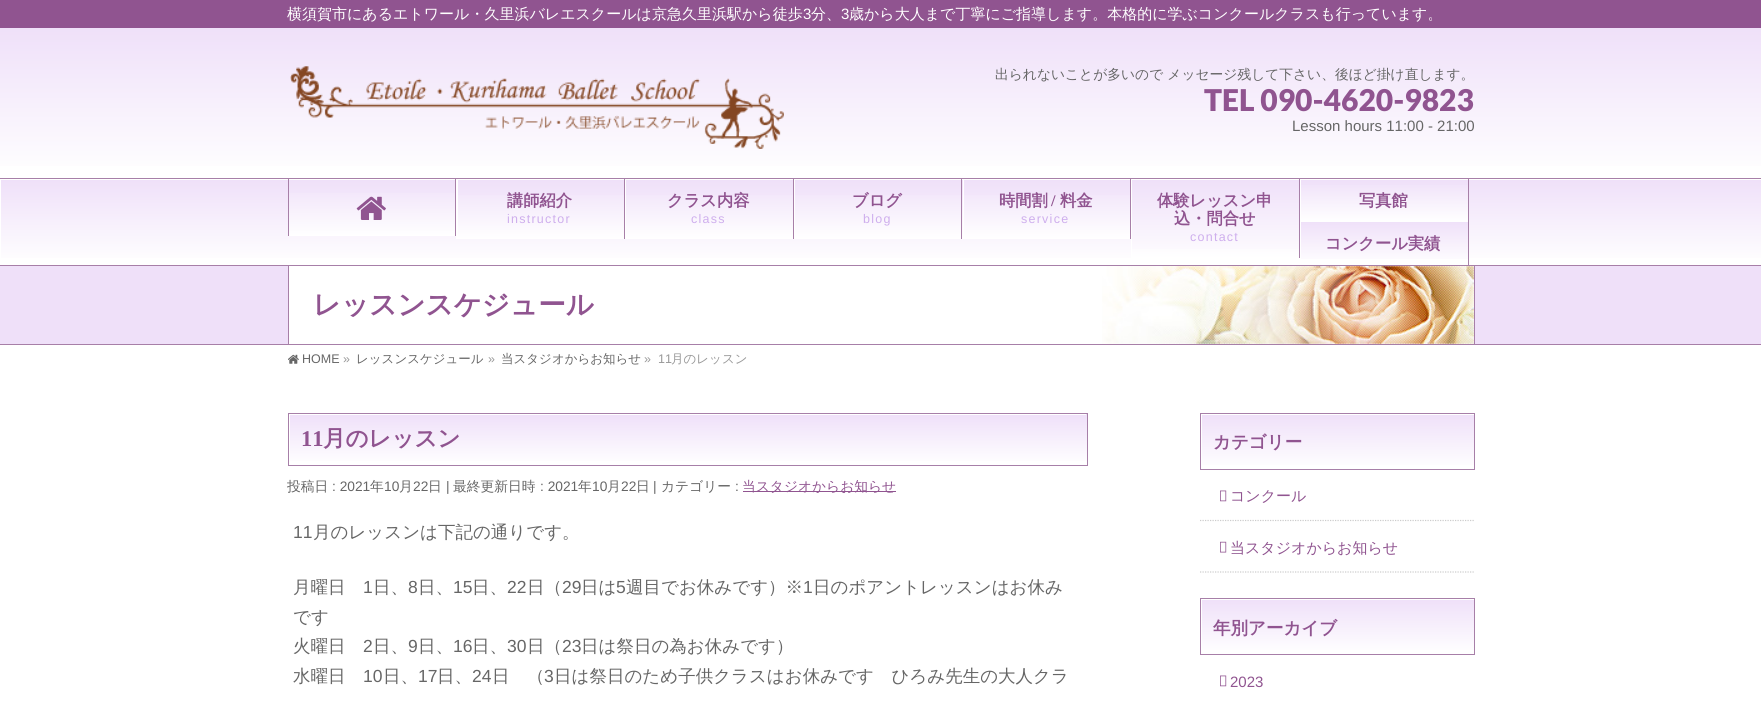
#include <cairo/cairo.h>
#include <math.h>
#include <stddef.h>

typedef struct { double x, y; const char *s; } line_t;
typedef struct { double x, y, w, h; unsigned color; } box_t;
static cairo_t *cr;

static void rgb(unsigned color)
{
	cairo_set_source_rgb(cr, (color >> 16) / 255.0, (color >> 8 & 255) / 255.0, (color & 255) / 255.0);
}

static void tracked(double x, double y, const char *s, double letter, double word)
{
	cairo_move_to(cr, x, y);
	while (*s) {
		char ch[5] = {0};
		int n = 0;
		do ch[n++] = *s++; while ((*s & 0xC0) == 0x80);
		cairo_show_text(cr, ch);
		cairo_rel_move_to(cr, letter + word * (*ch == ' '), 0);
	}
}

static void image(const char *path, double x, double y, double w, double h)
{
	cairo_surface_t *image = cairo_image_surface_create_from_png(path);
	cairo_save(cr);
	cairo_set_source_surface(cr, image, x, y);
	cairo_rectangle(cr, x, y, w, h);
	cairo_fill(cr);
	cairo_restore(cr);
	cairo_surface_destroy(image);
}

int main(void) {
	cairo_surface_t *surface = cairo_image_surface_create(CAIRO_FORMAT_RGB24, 1761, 702);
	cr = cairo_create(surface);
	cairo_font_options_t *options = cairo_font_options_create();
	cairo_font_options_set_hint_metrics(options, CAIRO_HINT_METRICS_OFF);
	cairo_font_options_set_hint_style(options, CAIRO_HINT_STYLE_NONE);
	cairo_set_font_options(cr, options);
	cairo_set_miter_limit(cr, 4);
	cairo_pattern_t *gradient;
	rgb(0xffffff);
	cairo_paint(cr);
	rgb(0x905490);
	cairo_rectangle(cr, 0, 0, 1761, 28);
	cairo_fill(cr);
	gradient = cairo_pattern_create_linear(881, 27, 881, 178);
	cairo_pattern_add_color_stop_rgba(gradient, 0, 0.937, 0.878, 0.976, 1);
	cairo_pattern_add_color_stop_rgba(gradient, 1, 1, 1, 1, 1);
	cairo_set_source(cr, gradient);
	cairo_pattern_destroy(gradient);
	cairo_rectangle(cr, 0, 28, 1761, 138);
	cairo_fill(cr);
	image("img/1.png", 290, 66, 494, 83);
	gradient = cairo_pattern_create_linear(881, 179, 881, 265);
	cairo_pattern_add_color_stop_rgba(gradient, 0, 0.937, 0.878, 0.976, 1);
	cairo_pattern_add_color_stop_rgba(gradient, 1, 1, 1, 1, 1);
	cairo_set_source(cr, gradient);
	cairo_pattern_destroy(gradient);
	cairo_rectangle(cr, 1, 180, 1760, 78);
	cairo_fill(cr);
	rgb(0xa77fa8);
	cairo_rectangle(cr, 0, 178, 1761, 1);
	cairo_fill(cr);
	cairo_rectangle(cr, 0, 265, 1761, 1);
	cairo_fill(cr);
	gradient = cairo_pattern_create_linear(372, 179, 372, 236);
	cairo_pattern_add_color_stop_rgba(gradient, 0, 0.937, 0.878, 0.976, 1);
	cairo_pattern_add_color_stop_rgba(gradient, 1, 1, 1, 1, 1);
	cairo_set_source(cr, gradient);
	cairo_pattern_destroy(gradient);
	cairo_rectangle(cr, 289, 193, 166, 43);
	cairo_fill(cr);
	cairo_save(cr);
	cairo_rectangle(cr, 288, 179, 168, 57);
	cairo_clip(cr);
	rgb(0xffffff);
	cairo_set_fill_rule(cr, CAIRO_FILL_RULE_EVEN_ODD);
	cairo_new_path(cr);
	cairo_move_to(cr, 164, 55);
	cairo_line_to(cr, 580, 55);
	cairo_line_to(cr, 580, 360);
	cairo_line_to(cr, 164, 360);
	cairo_close_path(cr);
	cairo_move_to(cr, 289, 180);
	cairo_line_to(cr, 458, 180);
	cairo_line_to(cr, 458, 238);
	cairo_line_to(cr, 289, 238);
	cairo_close_path(cr);
	cairo_fill(cr);
	cairo_restore(cr);
	rgb(0xa77fa8);
	cairo_rectangle(cr, 455, 179, 1, 57);
	cairo_fill(cr);
	cairo_rectangle(cr, 288, 179, 1, 57);
	cairo_fill(cr);
	image("img/2.png", 356, 196, 30, 24);
	gradient = cairo_pattern_create_linear(541, 179, 541, 239);
	cairo_pattern_add_color_stop_rgba(gradient, 0, 0.937, 0.878, 0.976, 1);
	cairo_pattern_add_color_stop_rgba(gradient, 1, 1, 1, 1, 1);
	cairo_set_source(cr, gradient);
	cairo_pattern_destroy(gradient);
	cairo_rectangle(cr, 458, 195, 166, 44);
	cairo_fill(cr);
	cairo_save(cr);
	cairo_rectangle(cr, 456, 179, 169, 60);
	cairo_clip(cr);
	rgb(0xffffff);
	cairo_set_fill_rule(cr, CAIRO_FILL_RULE_EVEN_ODD);
	cairo_new_path(cr);
	cairo_move_to(cr, 332, 55);
	cairo_line_to(cr, 749, 55);
	cairo_line_to(cr, 749, 362);
	cairo_line_to(cr, 332, 362);
	cairo_close_path(cr);
	cairo_move_to(cr, 458, 180);
	cairo_line_to(cr, 626, 180);
	cairo_line_to(cr, 626, 240);
	cairo_line_to(cr, 458, 240);
	cairo_close_path(cr);
	cairo_fill(cr);
	cairo_restore(cr);
	rgb(0xa77fa8);
	cairo_rectangle(cr, 624, 179, 1, 60);
	cairo_fill(cr);
	gradient = cairo_pattern_create_linear(709, 179, 709, 239);
	cairo_pattern_add_color_stop_rgba(gradient, 0, 0.937, 0.878, 0.976, 1);
	cairo_pattern_add_color_stop_rgba(gradient, 1, 1, 1, 1, 1);
	cairo_set_source(cr, gradient);
	cairo_pattern_destroy(gradient);
	cairo_rectangle(cr, 626, 195, 167, 44);
	cairo_fill(cr);
	cairo_save(cr);
	cairo_rectangle(cr, 625, 179, 169, 60);
	cairo_clip(cr);
	rgb(0xffffff);
	cairo_set_fill_rule(cr, CAIRO_FILL_RULE_EVEN_ODD);
	cairo_new_path(cr);
	cairo_move_to(cr, 501, 55);
	cairo_line_to(cr, 918, 55);
	cairo_line_to(cr, 918, 362);
	cairo_line_to(cr, 501, 362);
	cairo_close_path(cr);
	cairo_move_to(cr, 626, 180);
	cairo_line_to(cr, 795, 180);
	cairo_line_to(cr, 795, 240);
	cairo_line_to(cr, 626, 240);
	cairo_close_path(cr);
	cairo_fill(cr);
	cairo_restore(cr);
	rgb(0xa77fa8);
	cairo_rectangle(cr, 793, 179, 1, 60);
	cairo_fill(cr);
	gradient = cairo_pattern_create_linear(878, 179, 878, 239);
	cairo_pattern_add_color_stop_rgba(gradient, 0, 0.937, 0.878, 0.976, 1);
	cairo_pattern_add_color_stop_rgba(gradient, 1, 1, 1, 1, 1);
	cairo_set_source(cr, gradient);
	cairo_pattern_destroy(gradient);
	cairo_rectangle(cr, 795, 195, 168, 44);
	cairo_fill(cr);
	cairo_save(cr);
	cairo_rectangle(cr, 794, 179, 169, 60);
	cairo_clip(cr);
	rgb(0xffffff);
	cairo_set_fill_rule(cr, CAIRO_FILL_RULE_EVEN_ODD);
	cairo_new_path(cr);
	cairo_move_to(cr, 670, 55);
	cairo_line_to(cr, 1086, 55);
	cairo_line_to(cr, 1086, 362);
	cairo_line_to(cr, 670, 362);
	cairo_close_path(cr);
	cairo_move_to(cr, 795, 180);
	cairo_line_to(cr, 964, 180);
	cairo_line_to(cr, 964, 240);
	cairo_line_to(cr, 795, 240);
	cairo_close_path(cr);
	cairo_fill(cr);
	cairo_restore(cr);
	rgb(0xa77fa8);
	cairo_rectangle(cr, 961, 179, 1, 60);
	cairo_fill(cr);
	gradient = cairo_pattern_create_linear(1047, 179, 1047, 239);
	cairo_pattern_add_color_stop_rgba(gradient, 0, 0.937, 0.878, 0.976, 1);
	cairo_pattern_add_color_stop_rgba(gradient, 1, 1, 1, 1, 1);
	cairo_set_source(cr, gradient);
	cairo_pattern_destroy(gradient);
	cairo_rectangle(cr, 964, 195, 166, 44);
	cairo_fill(cr);
	cairo_save(cr);
	cairo_rectangle(cr, 963, 179, 168, 60);
	cairo_clip(cr);
	rgb(0xffffff);
	cairo_set_fill_rule(cr, CAIRO_FILL_RULE_EVEN_ODD);
	cairo_new_path(cr);
	cairo_move_to(cr, 839, 55);
	cairo_line_to(cr, 1255, 55);
	cairo_line_to(cr, 1255, 362);
	cairo_line_to(cr, 839, 362);
	cairo_close_path(cr);
	cairo_move_to(cr, 964, 180);
	cairo_line_to(cr, 1132, 180);
	cairo_line_to(cr, 1132, 240);
	cairo_line_to(cr, 964, 240);
	cairo_close_path(cr);
	cairo_fill(cr);
	cairo_restore(cr);
	rgb(0xa77fa8);
	cairo_rectangle(cr, 1130, 179, 1, 60);
	cairo_fill(cr);
	gradient = cairo_pattern_create_linear(1216, 179, 1216, 258);
	cairo_pattern_add_color_stop_rgba(gradient, 0, 0.937, 0.878, 0.976, 1);
	cairo_pattern_add_color_stop_rgba(gradient, 1, 1, 1, 1, 1);
	cairo_set_source(cr, gradient);
	cairo_pattern_destroy(gradient);
	cairo_rectangle(cr, 1132, 249, 167, 9);
	cairo_fill(cr);
	cairo_save(cr);
	cairo_rectangle(cr, 1131, 179, 169, 79);
	cairo_clip(cr);
	rgb(0xffffff);
	cairo_set_fill_rule(cr, CAIRO_FILL_RULE_EVEN_ODD);
	cairo_new_path(cr);
	cairo_move_to(cr, 1008, 55);
	cairo_line_to(cr, 1424, 55);
	cairo_line_to(cr, 1424, 381);
	cairo_line_to(cr, 1008, 381);
	cairo_close_path(cr);
	cairo_move_to(cr, 1132, 180);
	cairo_line_to(cr, 1301, 180);
	cairo_line_to(cr, 1301, 259);
	cairo_line_to(cr, 1132, 259);
	cairo_close_path(cr);
	cairo_fill(cr);
	cairo_restore(cr);
	rgb(0xa77fa8);
	cairo_rectangle(cr, 1299, 179, 1, 79);
	cairo_fill(cr);
	gradient = cairo_pattern_create_linear(1384, 179, 1384, 221);
	cairo_pattern_add_color_stop_rgba(gradient, 0, 0.937, 0.878, 0.976, 1);
	cairo_pattern_add_color_stop_rgba(gradient, 1, 1, 1, 1, 1);
	cairo_set_source(cr, gradient);
	cairo_pattern_destroy(gradient);
	cairo_rectangle(cr, 1301, 185, 167, 36);
	cairo_fill(cr);
	cairo_save(cr);
	cairo_rectangle(cr, 1300, 179, 169, 42);
	cairo_clip(cr);
	rgb(0xffffff);
	cairo_set_fill_rule(cr, CAIRO_FILL_RULE_EVEN_ODD);
	cairo_new_path(cr);
	cairo_move_to(cr, 1176, 55);
	cairo_line_to(cr, 1592, 55);
	cairo_line_to(cr, 1592, 345);
	cairo_line_to(cr, 1176, 345);
	cairo_close_path(cr);
	cairo_move_to(cr, 1301, 180);
	cairo_line_to(cr, 1470, 180);
	cairo_line_to(cr, 1470, 222);
	cairo_line_to(cr, 1301, 222);
	cairo_close_path(cr);
	cairo_fill(cr);
	cairo_restore(cr);
	rgb(0xa77fa8);
	cairo_rectangle(cr, 1468, 179, 1, 42);
	cairo_fill(cr);
	gradient = cairo_pattern_create_linear(1384, 221, 1384, 265);
	cairo_pattern_add_color_stop_rgba(gradient, 0, 0.937, 0.878, 0.976, 1);
	cairo_pattern_add_color_stop_rgba(gradient, 1, 1, 1, 1, 1);
	cairo_set_source(cr, gradient);
	cairo_pattern_destroy(gradient);
	cairo_rectangle(cr, 1301, 222, 167, 37);
	cairo_fill(cr);
	cairo_save(cr);
	cairo_rectangle(cr, 1300, 221, 169, 44);
	cairo_clip(cr);
	rgb(0xffffff);
	cairo_set_fill_rule(cr, CAIRO_FILL_RULE_EVEN_ODD);
	cairo_new_path(cr);
	cairo_move_to(cr, 1176, 98);
	cairo_line_to(cr, 1592, 98);
	cairo_line_to(cr, 1592, 389);
	cairo_line_to(cr, 1176, 389);
	cairo_close_path(cr);
	cairo_move_to(cr, 1301, 222);
	cairo_line_to(cr, 1470, 222);
	cairo_line_to(cr, 1470, 266);
	cairo_line_to(cr, 1301, 266);
	cairo_close_path(cr);
	cairo_fill(cr);
	cairo_restore(cr);
	{
		static const box_t items[] = {
			{1468, 221, 1, 44, 0xa77fa8},
			{0, 266, 1761, 78, 0xefe0f9},
			{0, 344, 1761, 1, 0xa77fa8},
			{289, 266, 1185, 78, 0xffffff},
		};
		for (size_t i = 0; i < sizeof items / sizeof *items; i++) {
			rgb(items[i].color);
			cairo_rectangle(cr, items[i].x, items[i].y, items[i].w, items[i].h);
			cairo_fill(cr);
		}
	}
	image("img/3.png", 1102, 266, 372, 78);
	rgb(0xa77fa8);
	cairo_rectangle(cr, 1474, 266, 1, 78);
	cairo_fill(cr);
	cairo_rectangle(cr, 288, 266, 1, 78);
	cairo_fill(cr);
	image("img/4.png", 288, 354, 11, 10);
	gradient = cairo_pattern_create_linear(688, 414, 688, 465);
	cairo_pattern_add_color_stop_rgba(gradient, 0, 0.937, 0.878, 0.976, 1);
	cairo_pattern_add_color_stop_rgba(gradient, 1, 1, 1, 1, 1);
	cairo_set_source(cr, gradient);
	cairo_pattern_destroy(gradient);
	cairo_rectangle(cr, 290, 414, 797, 47);
	cairo_fill(cr);
	cairo_save(cr);
	cairo_rectangle(cr, 289, 414, 797, 51);
	cairo_clip(cr);
	rgb(0xffffff);
	cairo_set_fill_rule(cr, CAIRO_FILL_RULE_EVEN_ODD);
	cairo_new_path(cr);
	cairo_move_to(cr, 165, 290);
	cairo_line_to(cr, 1210, 290);
	cairo_line_to(cr, 1210, 589);
	cairo_line_to(cr, 165, 589);
	cairo_close_path(cr);
	cairo_move_to(cr, 290, 415);
	cairo_line_to(cr, 1088, 415);
	cairo_line_to(cr, 1088, 466);
	cairo_line_to(cr, 290, 466);
	cairo_close_path(cr);
	cairo_fill(cr);
	cairo_restore(cr);
	cairo_rectangle(cr, 288.5, 413.5, 799, 52);
	rgb(0xa77fa8);
	cairo_set_line_width(cr, 1);
	cairo_stroke(cr);
	rgb(0x905490);
	cairo_rectangle(cr, 743, 491, 153, 1);
	cairo_fill(cr);
	gradient = cairo_pattern_create_linear(1338, 414, 1338, 469);
	cairo_pattern_add_color_stop_rgba(gradient, 0, 0.937, 0.878, 0.976, 1);
	cairo_pattern_add_color_stop_rgba(gradient, 1, 1, 1, 1, 1);
	cairo_set_source(cr, gradient);
	cairo_pattern_destroy(gradient);
	cairo_rectangle(cr, 1202, 415, 272, 50);
	cairo_fill(cr);
	cairo_rectangle(cr, 1200.5, 413.5, 274, 56);
	rgb(0xa77fa8);
	cairo_stroke(cr);
	cairo_new_path(cr);
	cairo_move_to(cr, 1200, 520.5);
	cairo_line_to(cr, 1475, 520.5);
	rgb(0xcccccc);
	cairo_set_line_width(cr, 1.2);
	cairo_set_dash(cr, (double[]){1.25, 1.25}, 2, 0);
	cairo_stroke(cr);
	image("img/5.png", 1220, 490, 7, 12);
	cairo_new_path(cr);
	cairo_move_to(cr, 1200, 572);
	cairo_line_to(cr, 1475, 572);
	cairo_stroke(cr);
	image("img/6.png", 1220, 541, 7, 12);
	gradient = cairo_pattern_create_linear(1338, 599, 1338, 654);
	cairo_pattern_add_color_stop_rgba(gradient, 0, 0.937, 0.878, 0.976, 1);
	cairo_pattern_add_color_stop_rgba(gradient, 1, 1, 1, 1, 1);
	cairo_set_source(cr, gradient);
	cairo_pattern_destroy(gradient);
	cairo_rectangle(cr, 1202, 600, 272, 50);
	cairo_fill(cr);
	cairo_rectangle(cr, 1200.5, 598.5, 274, 56);
	rgb(0xa77fa8);
	cairo_set_line_width(cr, 1);
	cairo_set_dash(cr, NULL, 0, 0);
	cairo_stroke(cr);
	image("img/5.png", 1220, 675, 7, 12);
	cairo_select_font_face(cr, "WenQuanYi Zen Hei Medium", CAIRO_FONT_SLANT_NORMAL, CAIRO_FONT_WEIGHT_NORMAL);
	cairo_set_font_size(cr, 15);
	rgb(0xffffff);
	cairo_move_to(cr, 287, 19);
	cairo_show_text(cr, "横須賀市にあるエトワール・久里浜バレエスクールは京急久里浜駅から徒歩");
	cairo_select_font_face(cr, "Liberation Sans", CAIRO_FONT_SLANT_NORMAL, CAIRO_FONT_WEIGHT_NORMAL);
	cairo_move_to(cr, 803, 19);
	cairo_show_text(cr, "3");
	cairo_select_font_face(cr, "WenQuanYi Zen Hei Medium", CAIRO_FONT_SLANT_NORMAL, CAIRO_FONT_WEIGHT_NORMAL);
	cairo_move_to(cr, 811, 19);
	cairo_show_text(cr, "分、");
	cairo_select_font_face(cr, "Liberation Sans", CAIRO_FONT_SLANT_NORMAL, CAIRO_FONT_WEIGHT_NORMAL);
	cairo_move_to(cr, 841, 19);
	cairo_show_text(cr, "3");
	cairo_select_font_face(cr, "WenQuanYi Zen Hei Medium", CAIRO_FONT_SLANT_NORMAL, CAIRO_FONT_WEIGHT_NORMAL);
	cairo_move_to(cr, 849, 19);
	cairo_show_text(cr, "歳から大人まで丁寧にご指導します。本格的に学ぶコンクールクラスも行っています。");
	cairo_set_font_size(cr, 13.75);
	rgb(0x666666);
	cairo_move_to(cr, 995, 79);
	cairo_show_text(cr, "出られないことが多いので メッセージ残して下さい、後ほど掛け直します。");
	cairo_select_font_face(cr, "Lato Black", CAIRO_FONT_SLANT_NORMAL, CAIRO_FONT_WEIGHT_NORMAL);
	cairo_set_font_size(cr, 30);
	rgb(0x905490);
	cairo_move_to(cr, 1204, 111);
	cairo_show_text(cr, "TEL 090-4620-9823");
	cairo_select_font_face(cr, "Liberation Sans", CAIRO_FONT_SLANT_NORMAL, CAIRO_FONT_WEIGHT_NORMAL);
	cairo_set_font_size(cr, 15);
	rgb(0x666666);
	cairo_move_to(cr, 1292, 131);
	cairo_show_text(cr, "Lesson hours 11:00 - 21:00");
	cairo_select_font_face(cr, "WenQuanYi Zen Hei", CAIRO_FONT_SLANT_NORMAL, CAIRO_FONT_WEIGHT_BOLD);
	cairo_set_font_size(cr, 16.25);
	rgb(0x905490);
	cairo_move_to(cr, 507, 206);
	cairo_show_text(cr, "講師紹介");
	cairo_select_font_face(cr, "Liberation Sans", CAIRO_FONT_SLANT_NORMAL, CAIRO_FONT_WEIGHT_NORMAL);
	cairo_set_font_size(cr, 12.5);
	rgb(0xceaeed);
	tracked(507, 223, "instructor", 1.25, 0);
	cairo_select_font_face(cr, "WenQuanYi Zen Hei", CAIRO_FONT_SLANT_NORMAL, CAIRO_FONT_WEIGHT_BOLD);
	cairo_set_font_size(cr, 16.25);
	rgb(0x905490);
	cairo_move_to(cr, 667, 206);
	cairo_show_text(cr, "クラス内容");
	cairo_select_font_face(cr, "Liberation Sans", CAIRO_FONT_SLANT_NORMAL, CAIRO_FONT_WEIGHT_NORMAL);
	cairo_set_font_size(cr, 12.5);
	rgb(0xceaeed);
	tracked(691, 223, "class", 1.25, 0);
	cairo_select_font_face(cr, "WenQuanYi Zen Hei", CAIRO_FONT_SLANT_NORMAL, CAIRO_FONT_WEIGHT_BOLD);
	cairo_set_font_size(cr, 16.25);
	rgb(0x905490);
	cairo_move_to(cr, 852, 206);
	cairo_show_text(cr, "ブログ");
	cairo_select_font_face(cr, "Liberation Sans", CAIRO_FONT_SLANT_NORMAL, CAIRO_FONT_WEIGHT_NORMAL);
	cairo_set_font_size(cr, 12.5);
	rgb(0xceaeed);
	tracked(863, 223, "blog", 1.25, 0);
	cairo_select_font_face(cr, "WenQuanYi Zen Hei", CAIRO_FONT_SLANT_NORMAL, CAIRO_FONT_WEIGHT_BOLD);
	cairo_set_font_size(cr, 16.25);
	rgb(0x905490);
	cairo_move_to(cr, 999, 206);
	cairo_show_text(cr, "時間割");
	cairo_select_font_face(cr, "Liberation Serif", CAIRO_FONT_SLANT_NORMAL, CAIRO_FONT_WEIGHT_BOLD);
	cairo_move_to(cr, 1051, 206);
	cairo_show_text(cr, "/");
	cairo_select_font_face(cr, "WenQuanYi Zen Hei", CAIRO_FONT_SLANT_NORMAL, CAIRO_FONT_WEIGHT_BOLD);
	cairo_move_to(cr, 1060, 206);
	cairo_show_text(cr, "料金");
	cairo_select_font_face(cr, "Liberation Sans", CAIRO_FONT_SLANT_NORMAL, CAIRO_FONT_WEIGHT_NORMAL);
	cairo_set_font_size(cr, 12.5);
	rgb(0xceaeed);
	tracked(1021, 223, "service", 1.25, 0);
	cairo_select_font_face(cr, "WenQuanYi Zen Hei", CAIRO_FONT_SLANT_NORMAL, CAIRO_FONT_WEIGHT_BOLD);
	cairo_set_font_size(cr, 16.25);
	rgb(0x905490);
	cairo_move_to(cr, 1157, 206);
	cairo_show_text(cr, "体験レッスン申");
	cairo_move_to(cr, 1174, 224);
	cairo_show_text(cr, "込・問合せ");
	cairo_select_font_face(cr, "Liberation Sans", CAIRO_FONT_SLANT_NORMAL, CAIRO_FONT_WEIGHT_NORMAL);
	cairo_set_font_size(cr, 12.5);
	rgb(0xceaeed);
	tracked(1190, 241, "contact", 1.25, 0);
	cairo_select_font_face(cr, "WenQuanYi Zen Hei", CAIRO_FONT_SLANT_NORMAL, CAIRO_FONT_WEIGHT_BOLD);
	cairo_set_font_size(cr, 16.25);
	rgb(0x905490);
	cairo_move_to(cr, 1359, 206);
	cairo_show_text(cr, "写真館");
	cairo_move_to(cr, 1325, 249);
	cairo_show_text(cr, "コンクール実績");
	cairo_set_font_size(cr, 27.5);
	cairo_move_to(cr, 313, 314);
	cairo_show_text(cr, "レッスンスケジュール");
	cairo_select_font_face(cr, "Liberation Sans", CAIRO_FONT_SLANT_NORMAL, CAIRO_FONT_WEIGHT_NORMAL);
	cairo_set_font_size(cr, 12.5);
	rgb(0x666666);
	cairo_move_to(cr, 302, 363);
	cairo_show_text(cr, "HOME");
	rgb(0x999999);
	cairo_move_to(cr, 343, 363);
	cairo_show_text(cr, "»");
	cairo_select_font_face(cr, "WenQuanYi Zen Hei Medium", CAIRO_FONT_SLANT_NORMAL, CAIRO_FONT_WEIGHT_NORMAL);
	rgb(0x666666);
	cairo_move_to(cr, 356, 363);
	cairo_show_text(cr, "レッスンスケジュール");
	cairo_select_font_face(cr, "Liberation Sans", CAIRO_FONT_SLANT_NORMAL, CAIRO_FONT_WEIGHT_NORMAL);
	rgb(0x999999);
	cairo_move_to(cr, 488, 363);
	cairo_show_text(cr, "»");
	cairo_select_font_face(cr, "WenQuanYi Zen Hei Medium", CAIRO_FONT_SLANT_NORMAL, CAIRO_FONT_WEIGHT_NORMAL);
	rgb(0x666666);
	cairo_move_to(cr, 501, 363);
	cairo_show_text(cr, "当スタジオからお知らせ");
	cairo_select_font_face(cr, "Liberation Sans", CAIRO_FONT_SLANT_NORMAL, CAIRO_FONT_WEIGHT_NORMAL);
	rgb(0x999999);
	cairo_move_to(cr, 644, 363);
	cairo_show_text(cr, "»");
	cairo_move_to(cr, 658, 363);
	cairo_show_text(cr, "11");
	cairo_select_font_face(cr, "WenQuanYi Zen Hei Medium", CAIRO_FONT_SLANT_NORMAL, CAIRO_FONT_WEIGHT_NORMAL);
	cairo_move_to(cr, 671, 363);
	cairo_show_text(cr, "月のレッスン");
	cairo_select_font_face(cr, "Liberation Serif", CAIRO_FONT_SLANT_NORMAL, CAIRO_FONT_WEIGHT_BOLD);
	cairo_set_font_size(cr, 22.5);
	rgb(0x905490);
	cairo_move_to(cr, 301, 446);
	cairo_show_text(cr, "11");
	cairo_select_font_face(cr, "WenQuanYi Zen Hei", CAIRO_FONT_SLANT_NORMAL, CAIRO_FONT_WEIGHT_BOLD);
	cairo_move_to(cr, 323, 446);
	cairo_show_text(cr, "月のレッスン");
	cairo_select_font_face(cr, "WenQuanYi Zen Hei Medium", CAIRO_FONT_SLANT_NORMAL, CAIRO_FONT_WEIGHT_NORMAL);
	cairo_set_font_size(cr, 13.75);
	rgb(0x666666);
	cairo_move_to(cr, 287, 491);
	cairo_show_text(cr, "投稿日");
	cairo_select_font_face(cr, "Liberation Sans", CAIRO_FONT_SLANT_NORMAL, CAIRO_FONT_WEIGHT_NORMAL);
	cairo_move_to(cr, 332, 491);
	cairo_show_text(cr, ": 2021");
	cairo_select_font_face(cr, "WenQuanYi Zen Hei Medium", CAIRO_FONT_SLANT_NORMAL, CAIRO_FONT_WEIGHT_NORMAL);
	cairo_move_to(cr, 370, 491);
	cairo_show_text(cr, "年");
	cairo_select_font_face(cr, "Liberation Sans", CAIRO_FONT_SLANT_NORMAL, CAIRO_FONT_WEIGHT_NORMAL);
	cairo_move_to(cr, 384, 491);
	cairo_show_text(cr, "10");
	cairo_select_font_face(cr, "WenQuanYi Zen Hei Medium", CAIRO_FONT_SLANT_NORMAL, CAIRO_FONT_WEIGHT_NORMAL);
	cairo_move_to(cr, 399, 491);
	cairo_show_text(cr, "月");
	cairo_select_font_face(cr, "Liberation Sans", CAIRO_FONT_SLANT_NORMAL, CAIRO_FONT_WEIGHT_NORMAL);
	cairo_move_to(cr, 413, 491);
	cairo_show_text(cr, "22");
	cairo_select_font_face(cr, "WenQuanYi Zen Hei Medium", CAIRO_FONT_SLANT_NORMAL, CAIRO_FONT_WEIGHT_NORMAL);
	cairo_move_to(cr, 428, 491);
	cairo_show_text(cr, "日");
	cairo_select_font_face(cr, "Liberation Sans", CAIRO_FONT_SLANT_NORMAL, CAIRO_FONT_WEIGHT_NORMAL);
	cairo_move_to(cr, 446, 491);
	cairo_show_text(cr, "|");
	cairo_select_font_face(cr, "WenQuanYi Zen Hei Medium", CAIRO_FONT_SLANT_NORMAL, CAIRO_FONT_WEIGHT_NORMAL);
	cairo_move_to(cr, 453, 491);
	cairo_show_text(cr, "最終更新日時");
	cairo_select_font_face(cr, "Liberation Sans", CAIRO_FONT_SLANT_NORMAL, CAIRO_FONT_WEIGHT_NORMAL);
	cairo_move_to(cr, 540, 491);
	cairo_show_text(cr, ": 2021");
	cairo_select_font_face(cr, "WenQuanYi Zen Hei Medium", CAIRO_FONT_SLANT_NORMAL, CAIRO_FONT_WEIGHT_NORMAL);
	cairo_move_to(cr, 578, 491);
	cairo_show_text(cr, "年");
	cairo_select_font_face(cr, "Liberation Sans", CAIRO_FONT_SLANT_NORMAL, CAIRO_FONT_WEIGHT_NORMAL);
	cairo_move_to(cr, 592, 491);
	cairo_show_text(cr, "10");
	cairo_select_font_face(cr, "WenQuanYi Zen Hei Medium", CAIRO_FONT_SLANT_NORMAL, CAIRO_FONT_WEIGHT_NORMAL);
	cairo_move_to(cr, 607, 491);
	cairo_show_text(cr, "月");
	cairo_select_font_face(cr, "Liberation Sans", CAIRO_FONT_SLANT_NORMAL, CAIRO_FONT_WEIGHT_NORMAL);
	cairo_move_to(cr, 621, 491);
	cairo_show_text(cr, "22");
	cairo_select_font_face(cr, "WenQuanYi Zen Hei Medium", CAIRO_FONT_SLANT_NORMAL, CAIRO_FONT_WEIGHT_NORMAL);
	cairo_move_to(cr, 636, 491);
	cairo_show_text(cr, "日");
	cairo_select_font_face(cr, "Liberation Sans", CAIRO_FONT_SLANT_NORMAL, CAIRO_FONT_WEIGHT_NORMAL);
	cairo_move_to(cr, 653, 491);
	cairo_show_text(cr, "|");
	cairo_select_font_face(cr, "WenQuanYi Zen Hei Medium", CAIRO_FONT_SLANT_NORMAL, CAIRO_FONT_WEIGHT_NORMAL);
	cairo_move_to(cr, 661, 491);
	cairo_show_text(cr, "カテゴリー");
	cairo_select_font_face(cr, "Liberation Sans", CAIRO_FONT_SLANT_NORMAL, CAIRO_FONT_WEIGHT_NORMAL);
	cairo_move_to(cr, 735, 491);
	cairo_show_text(cr, ":");
	cairo_select_font_face(cr, "WenQuanYi Zen Hei Medium", CAIRO_FONT_SLANT_NORMAL, CAIRO_FONT_WEIGHT_NORMAL);
	rgb(0x905490);
	cairo_move_to(cr, 742, 491);
	cairo_show_text(cr, "当スタジオからお知らせ");
	cairo_select_font_face(cr, "Liberation Sans", CAIRO_FONT_SLANT_NORMAL, CAIRO_FONT_WEIGHT_NORMAL);
	cairo_set_font_size(cr, 17.5);
	rgb(0x666666);
	cairo_move_to(cr, 293, 538);
	cairo_show_text(cr, "11");
	cairo_select_font_face(cr, "WenQuanYi Zen Hei Medium", CAIRO_FONT_SLANT_NORMAL, CAIRO_FONT_WEIGHT_NORMAL);
	cairo_move_to(cr, 313, 538);
	cairo_show_text(cr, "月のレッスンは下記の通りです。");
	cairo_move_to(cr, 293, 593);
	cairo_show_text(cr, "月曜日");
	cairo_select_font_face(cr, "Liberation Sans", CAIRO_FONT_SLANT_NORMAL, CAIRO_FONT_WEIGHT_NORMAL);
	cairo_move_to(cr, 363, 593);
	cairo_show_text(cr, "1");
	cairo_select_font_face(cr, "WenQuanYi Zen Hei Medium", CAIRO_FONT_SLANT_NORMAL, CAIRO_FONT_WEIGHT_NORMAL);
	cairo_move_to(cr, 373, 593);
	cairo_show_text(cr, "日、");
	cairo_select_font_face(cr, "Liberation Sans", CAIRO_FONT_SLANT_NORMAL, CAIRO_FONT_WEIGHT_NORMAL);
	cairo_move_to(cr, 408, 593);
	cairo_show_text(cr, "8");
	cairo_select_font_face(cr, "WenQuanYi Zen Hei Medium", CAIRO_FONT_SLANT_NORMAL, CAIRO_FONT_WEIGHT_NORMAL);
	cairo_move_to(cr, 418, 593);
	cairo_show_text(cr, "日、");
	cairo_select_font_face(cr, "Liberation Sans", CAIRO_FONT_SLANT_NORMAL, CAIRO_FONT_WEIGHT_NORMAL);
	cairo_move_to(cr, 453, 593);
	cairo_show_text(cr, "15");
	cairo_select_font_face(cr, "WenQuanYi Zen Hei Medium", CAIRO_FONT_SLANT_NORMAL, CAIRO_FONT_WEIGHT_NORMAL);
	cairo_move_to(cr, 472, 593);
	cairo_show_text(cr, "日、");
	cairo_select_font_face(cr, "Liberation Sans", CAIRO_FONT_SLANT_NORMAL, CAIRO_FONT_WEIGHT_NORMAL);
	cairo_move_to(cr, 507, 593);
	cairo_show_text(cr, "22");
	cairo_select_font_face(cr, "WenQuanYi Zen Hei Medium", CAIRO_FONT_SLANT_NORMAL, CAIRO_FONT_WEIGHT_NORMAL);
	cairo_move_to(cr, 527, 593);
	cairo_show_text(cr, "日（");
	cairo_select_font_face(cr, "Liberation Sans", CAIRO_FONT_SLANT_NORMAL, CAIRO_FONT_WEIGHT_NORMAL);
	cairo_move_to(cr, 562, 593);
	cairo_show_text(cr, "29");
	cairo_select_font_face(cr, "WenQuanYi Zen Hei Medium", CAIRO_FONT_SLANT_NORMAL, CAIRO_FONT_WEIGHT_NORMAL);
	cairo_move_to(cr, 581, 593);
	cairo_show_text(cr, "日は");
	cairo_select_font_face(cr, "Liberation Sans", CAIRO_FONT_SLANT_NORMAL, CAIRO_FONT_WEIGHT_NORMAL);
	cairo_move_to(cr, 616, 593);
	cairo_show_text(cr, "5");
	cairo_select_font_face(cr, "WenQuanYi Zen Hei Medium", CAIRO_FONT_SLANT_NORMAL, CAIRO_FONT_WEIGHT_NORMAL);
	cairo_move_to(cr, 626, 593);
	cairo_show_text(cr, "週目でお休みです）※");
	cairo_select_font_face(cr, "Liberation Sans", CAIRO_FONT_SLANT_NORMAL, CAIRO_FONT_WEIGHT_NORMAL);
	cairo_move_to(cr, 803, 593);
	cairo_show_text(cr, "1");
	cairo_select_font_face(cr, "WenQuanYi Zen Hei Medium", CAIRO_FONT_SLANT_NORMAL, CAIRO_FONT_WEIGHT_NORMAL);
	{
		static const line_t items[] = {
			{813, 593, "日のポアントレッスンはお休み"},
			{293, 623, "です"},
			{293, 652, "火曜日"},
		};
		for (size_t i = 0; i < sizeof items / sizeof *items; i++) {
			cairo_move_to(cr, items[i].x, items[i].y);
			cairo_show_text(cr, items[i].s);
		}
	}
	cairo_select_font_face(cr, "Liberation Sans", CAIRO_FONT_SLANT_NORMAL, CAIRO_FONT_WEIGHT_NORMAL);
	cairo_move_to(cr, 363, 652);
	cairo_show_text(cr, "2");
	cairo_select_font_face(cr, "WenQuanYi Zen Hei Medium", CAIRO_FONT_SLANT_NORMAL, CAIRO_FONT_WEIGHT_NORMAL);
	cairo_move_to(cr, 373, 652);
	cairo_show_text(cr, "日、");
	cairo_select_font_face(cr, "Liberation Sans", CAIRO_FONT_SLANT_NORMAL, CAIRO_FONT_WEIGHT_NORMAL);
	cairo_move_to(cr, 408, 652);
	cairo_show_text(cr, "9");
	cairo_select_font_face(cr, "WenQuanYi Zen Hei Medium", CAIRO_FONT_SLANT_NORMAL, CAIRO_FONT_WEIGHT_NORMAL);
	cairo_move_to(cr, 418, 652);
	cairo_show_text(cr, "日、");
	cairo_select_font_face(cr, "Liberation Sans", CAIRO_FONT_SLANT_NORMAL, CAIRO_FONT_WEIGHT_NORMAL);
	cairo_move_to(cr, 453, 652);
	cairo_show_text(cr, "16");
	cairo_select_font_face(cr, "WenQuanYi Zen Hei Medium", CAIRO_FONT_SLANT_NORMAL, CAIRO_FONT_WEIGHT_NORMAL);
	cairo_move_to(cr, 472, 652);
	cairo_show_text(cr, "日、");
	cairo_select_font_face(cr, "Liberation Sans", CAIRO_FONT_SLANT_NORMAL, CAIRO_FONT_WEIGHT_NORMAL);
	cairo_move_to(cr, 507, 652);
	cairo_show_text(cr, "30");
	cairo_select_font_face(cr, "WenQuanYi Zen Hei Medium", CAIRO_FONT_SLANT_NORMAL, CAIRO_FONT_WEIGHT_NORMAL);
	cairo_move_to(cr, 527, 652);
	cairo_show_text(cr, "日（");
	cairo_select_font_face(cr, "Liberation Sans", CAIRO_FONT_SLANT_NORMAL, CAIRO_FONT_WEIGHT_NORMAL);
	cairo_move_to(cr, 562, 652);
	cairo_show_text(cr, "23");
	cairo_select_font_face(cr, "WenQuanYi Zen Hei Medium", CAIRO_FONT_SLANT_NORMAL, CAIRO_FONT_WEIGHT_NORMAL);
	cairo_move_to(cr, 581, 652);
	cairo_show_text(cr, "日は祭日の為お休みです）");
	cairo_move_to(cr, 293, 682);
	cairo_show_text(cr, "水曜日");
	cairo_select_font_face(cr, "Liberation Sans", CAIRO_FONT_SLANT_NORMAL, CAIRO_FONT_WEIGHT_NORMAL);
	cairo_move_to(cr, 363, 682);
	cairo_show_text(cr, "10");
	cairo_select_font_face(cr, "WenQuanYi Zen Hei Medium", CAIRO_FONT_SLANT_NORMAL, CAIRO_FONT_WEIGHT_NORMAL);
	cairo_move_to(cr, 383, 682);
	cairo_show_text(cr, "日、");
	cairo_select_font_face(cr, "Liberation Sans", CAIRO_FONT_SLANT_NORMAL, CAIRO_FONT_WEIGHT_NORMAL);
	cairo_move_to(cr, 418, 682);
	cairo_show_text(cr, "17");
	cairo_select_font_face(cr, "WenQuanYi Zen Hei Medium", CAIRO_FONT_SLANT_NORMAL, CAIRO_FONT_WEIGHT_NORMAL);
	cairo_move_to(cr, 437, 682);
	cairo_show_text(cr, "日、");
	cairo_select_font_face(cr, "Liberation Sans", CAIRO_FONT_SLANT_NORMAL, CAIRO_FONT_WEIGHT_NORMAL);
	cairo_move_to(cr, 472, 682);
	cairo_show_text(cr, "24");
	cairo_select_font_face(cr, "WenQuanYi Zen Hei Medium", CAIRO_FONT_SLANT_NORMAL, CAIRO_FONT_WEIGHT_NORMAL);
	cairo_move_to(cr, 492, 682);
	cairo_show_text(cr, "日　（");
	cairo_select_font_face(cr, "Liberation Sans", CAIRO_FONT_SLANT_NORMAL, CAIRO_FONT_WEIGHT_NORMAL);
	cairo_move_to(cr, 544, 682);
	cairo_show_text(cr, "3");
	cairo_select_font_face(cr, "WenQuanYi Zen Hei Medium", CAIRO_FONT_SLANT_NORMAL, CAIRO_FONT_WEIGHT_NORMAL);
	cairo_move_to(cr, 554, 682);
	cairo_show_text(cr, "日は祭日のため子供クラスはお休みです　ひろみ先生の大人クラ");
	cairo_select_font_face(cr, "WenQuanYi Zen Hei", CAIRO_FONT_SLANT_NORMAL, CAIRO_FONT_WEIGHT_BOLD);
	rgb(0x905490);
	cairo_move_to(cr, 1213, 448);
	cairo_show_text(cr, "カテゴリー");
	cairo_select_font_face(cr, "WenQuanYi Zen Hei Medium", CAIRO_FONT_SLANT_NORMAL, CAIRO_FONT_WEIGHT_NORMAL);
	cairo_set_font_size(cr, 15);
	cairo_move_to(cr, 1230, 501);
	cairo_show_text(cr, "コンクール");
	cairo_move_to(cr, 1230, 553);
	cairo_show_text(cr, "当スタジオからお知らせ");
	cairo_select_font_face(cr, "WenQuanYi Zen Hei", CAIRO_FONT_SLANT_NORMAL, CAIRO_FONT_WEIGHT_BOLD);
	cairo_set_font_size(cr, 17.5);
	cairo_move_to(cr, 1213, 634);
	cairo_show_text(cr, "年別アーカイブ");
	cairo_select_font_face(cr, "Liberation Sans", CAIRO_FONT_SLANT_NORMAL, CAIRO_FONT_WEIGHT_NORMAL);
	cairo_set_font_size(cr, 15);
	cairo_move_to(cr, 1230, 687);
	cairo_show_text(cr, "2023");
	cairo_surface_write_to_png(surface, "page.png");
	cairo_font_options_destroy(options);
	cairo_destroy(cr);
	cairo_surface_destroy(surface);
	return 0;
}
